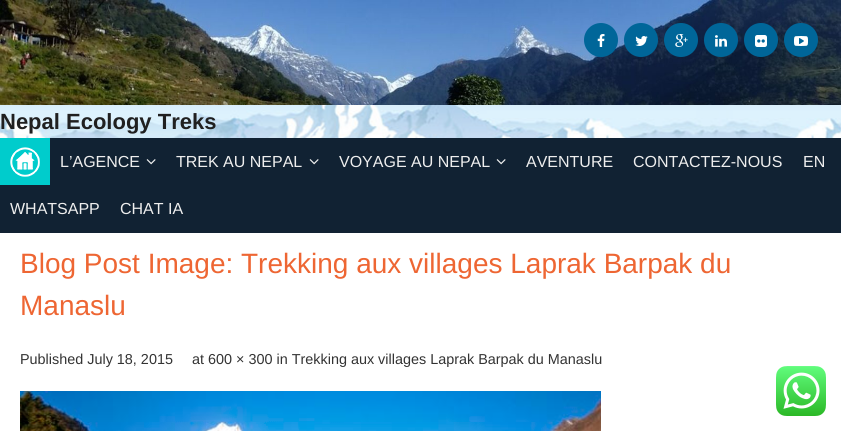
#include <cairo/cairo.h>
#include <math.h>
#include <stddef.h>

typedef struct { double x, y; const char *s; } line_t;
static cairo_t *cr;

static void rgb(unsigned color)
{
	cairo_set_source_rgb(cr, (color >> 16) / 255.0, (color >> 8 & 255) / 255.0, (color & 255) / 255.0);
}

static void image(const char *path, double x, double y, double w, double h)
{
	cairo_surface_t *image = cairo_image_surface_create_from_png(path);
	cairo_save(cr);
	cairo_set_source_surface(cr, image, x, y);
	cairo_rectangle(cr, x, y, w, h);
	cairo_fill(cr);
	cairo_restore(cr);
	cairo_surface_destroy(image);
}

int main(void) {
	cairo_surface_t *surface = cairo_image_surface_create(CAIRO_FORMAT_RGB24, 841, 431);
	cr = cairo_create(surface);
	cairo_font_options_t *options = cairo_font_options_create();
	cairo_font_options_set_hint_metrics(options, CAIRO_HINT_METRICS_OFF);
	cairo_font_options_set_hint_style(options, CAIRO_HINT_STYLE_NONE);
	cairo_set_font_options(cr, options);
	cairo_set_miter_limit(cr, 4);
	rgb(0xffffff);
	cairo_paint(cr);
	image("img/1.png", 0, 105, 841, 33);
	image("img/2.png", 0, 0, 841, 105);
	rgb(0x006699);
	cairo_arc(cr, 601, 40, 17, 0, 2 * M_PI);
	cairo_fill(cr);
	image("img/3.png", 597, 34, 8, 13);
	cairo_arc(cr, 641, 40, 17, 0, 2 * M_PI);
	cairo_fill(cr);
	image("img/4.png", 635, 36, 13, 10);
	cairo_arc(cr, 681, 40, 17, 0, 2 * M_PI);
	cairo_fill(cr);
	image("img/5.png", 675, 34, 13, 13);
	cairo_arc(cr, 721, 40, 17, 0, 2 * M_PI);
	cairo_fill(cr);
	image("img/6.png", 715, 35, 12, 12);
	cairo_arc(cr, 761, 40, 17, 0, 2 * M_PI);
	cairo_fill(cr);
	image("img/7.png", 755, 35, 12, 12);
	cairo_arc(cr, 801, 40, 17, 0, 2 * M_PI);
	cairo_fill(cr);
	image("img/8.png", 794, 36, 14, 10);
	rgb(0x112233);
	cairo_rectangle(cr, 0, 138, 841, 95);
	cairo_fill(cr);
	rgb(0x00cccc);
	cairo_rectangle(cr, 0, 138, 50, 47);
	cairo_fill(cr);
	image("img/9.png", 10, 147, 30, 30);
	image("img/10.png", 146, 159, 10, 6);
	image("img/10.png", 309, 159, 10, 6);
	image("img/10.png", 496, 159, 10, 6);
	image("img/11.png", 20, 391, 581, 40);
	image("img/12.png", 776, 366, 50, 50);
	cairo_select_font_face(cr, "Liberation Sans", CAIRO_FONT_SLANT_NORMAL, CAIRO_FONT_WEIGHT_BOLD);
	cairo_set_font_size(cr, 22);
	rgb(0x202020);
	cairo_move_to(cr, 0, 129);
	cairo_show_text(cr, "Nepal Ecology Treks");
	cairo_select_font_face(cr, "Liberation Sans", CAIRO_FONT_SLANT_NORMAL, CAIRO_FONT_WEIGHT_NORMAL);
	cairo_set_font_size(cr, 16);
	rgb(0xeeeeee);
	{
		static const line_t items[] = {
			{60, 167, "L’AGENCE"},
			{176, 167, "TREK AU NEPAL"},
			{339, 167, "VOYAGE AU NEPAL"},
			{526, 167, "AVENTURE"},
			{633, 167, "CONTACTEZ-NOUS"},
			{803, 167, "EN"},
			{10, 214, "WHATSAPP"},
			{120, 214, "CHAT IA"},
		};
		for (size_t i = 0; i < sizeof items / sizeof *items; i++) {
			cairo_move_to(cr, items[i].x, items[i].y);
			cairo_show_text(cr, items[i].s);
		}
	}
	cairo_set_font_size(cr, 28);
	rgb(0xee6633);
	cairo_move_to(cr, 20, 273);
	cairo_show_text(cr, "Blog Post Image: Trekking aux villages Laprak Barpak du");
	cairo_move_to(cr, 20, 315);
	cairo_show_text(cr, "Manaslu");
	cairo_set_font_size(cr, 14.4);
	rgb(0x333333);
	cairo_move_to(cr, 20, 364);
	cairo_show_text(cr, "Published July 18, 2015");
	cairo_move_to(cr, 192, 364);
	cairo_show_text(cr, "at 600 × 300 in Trekking aux villages Laprak Barpak du Manaslu");
	cairo_surface_write_to_png(surface, "page.png");
	cairo_font_options_destroy(options);
	cairo_destroy(cr);
	cairo_surface_destroy(surface);
	return 0;
}
